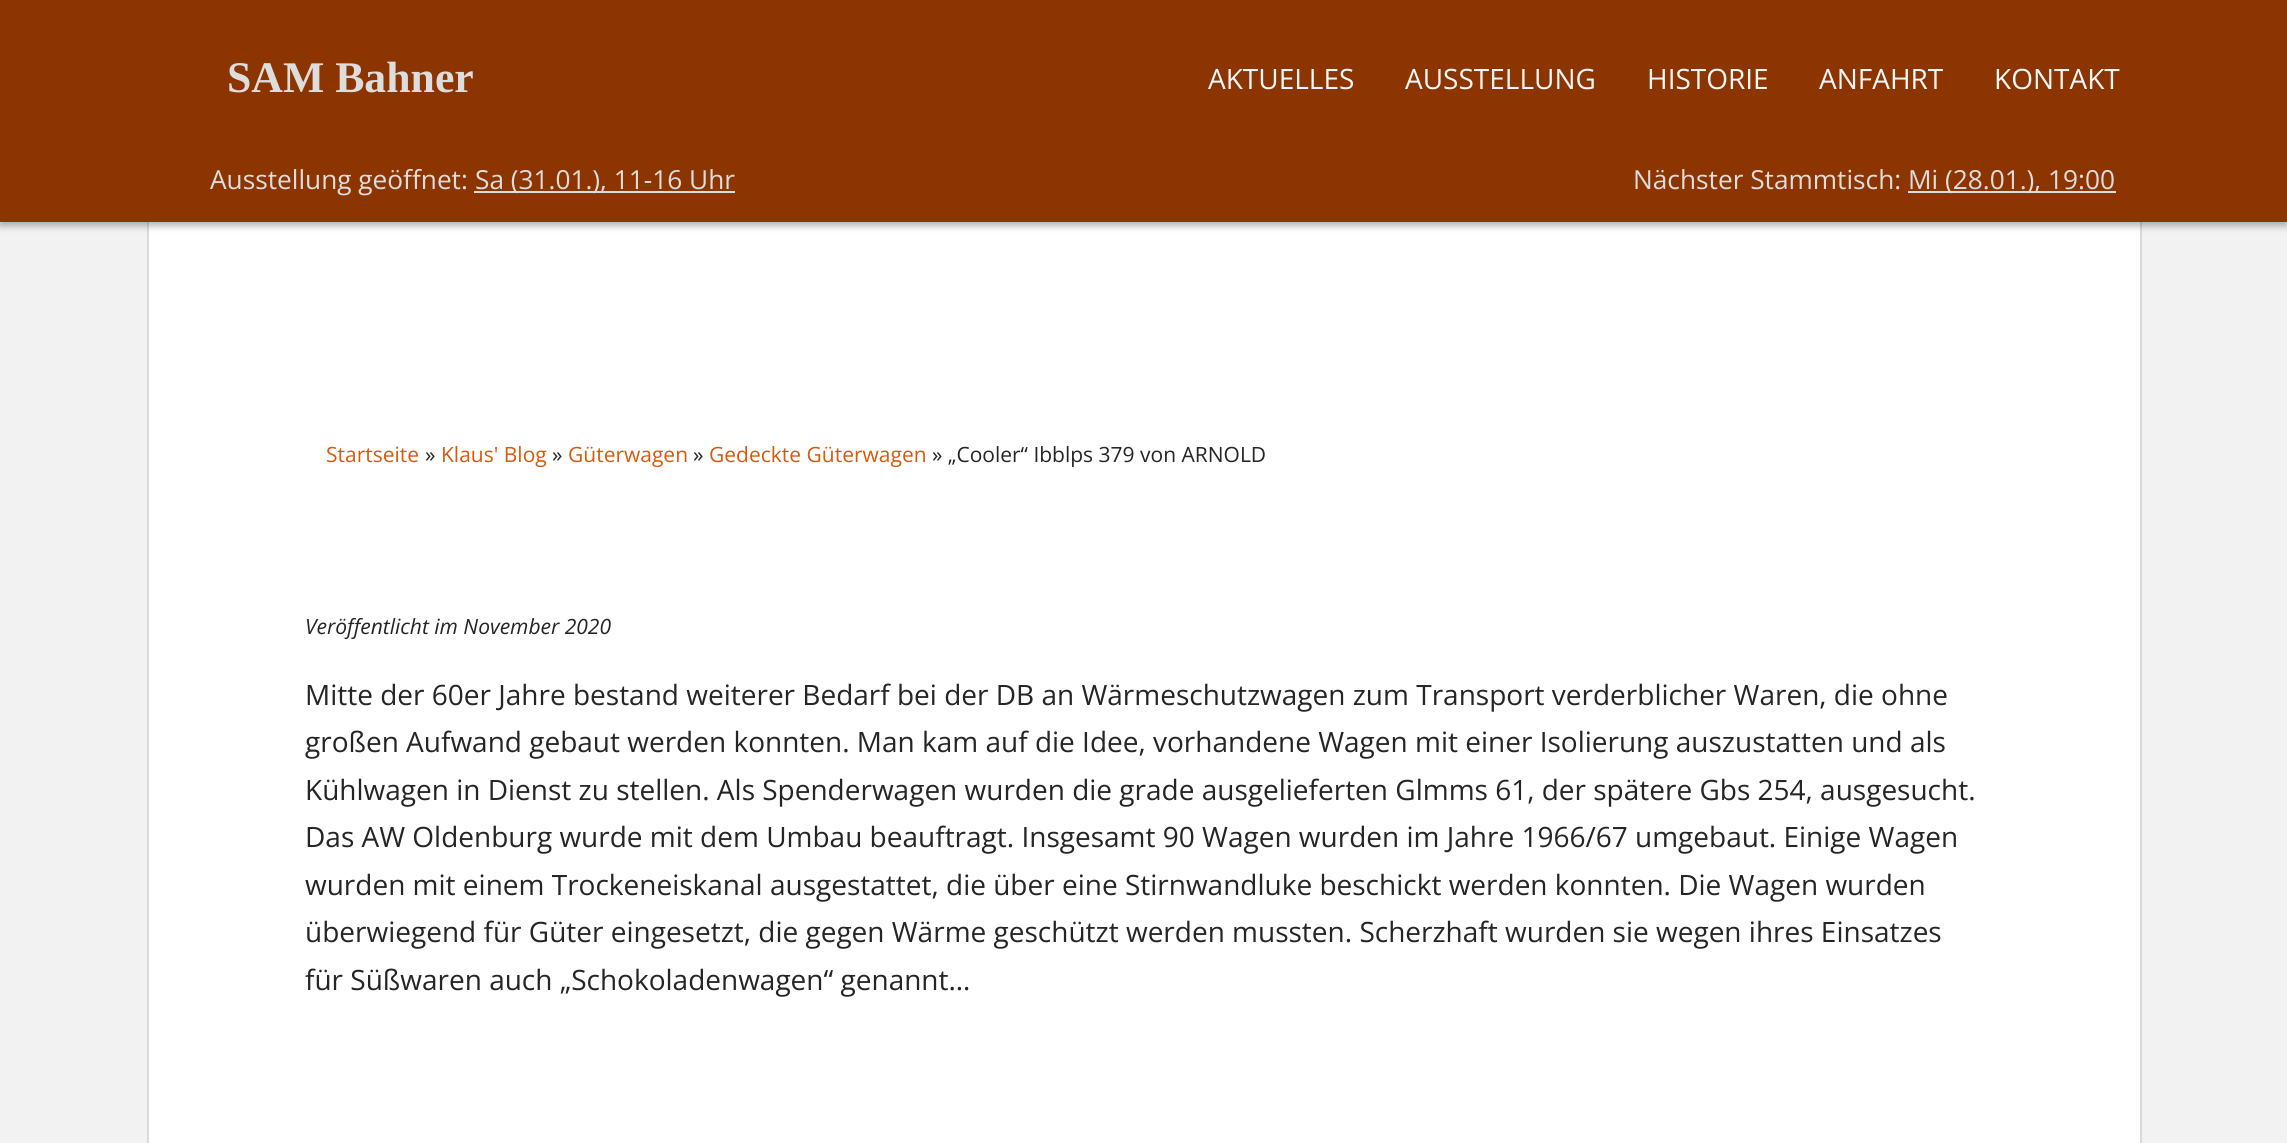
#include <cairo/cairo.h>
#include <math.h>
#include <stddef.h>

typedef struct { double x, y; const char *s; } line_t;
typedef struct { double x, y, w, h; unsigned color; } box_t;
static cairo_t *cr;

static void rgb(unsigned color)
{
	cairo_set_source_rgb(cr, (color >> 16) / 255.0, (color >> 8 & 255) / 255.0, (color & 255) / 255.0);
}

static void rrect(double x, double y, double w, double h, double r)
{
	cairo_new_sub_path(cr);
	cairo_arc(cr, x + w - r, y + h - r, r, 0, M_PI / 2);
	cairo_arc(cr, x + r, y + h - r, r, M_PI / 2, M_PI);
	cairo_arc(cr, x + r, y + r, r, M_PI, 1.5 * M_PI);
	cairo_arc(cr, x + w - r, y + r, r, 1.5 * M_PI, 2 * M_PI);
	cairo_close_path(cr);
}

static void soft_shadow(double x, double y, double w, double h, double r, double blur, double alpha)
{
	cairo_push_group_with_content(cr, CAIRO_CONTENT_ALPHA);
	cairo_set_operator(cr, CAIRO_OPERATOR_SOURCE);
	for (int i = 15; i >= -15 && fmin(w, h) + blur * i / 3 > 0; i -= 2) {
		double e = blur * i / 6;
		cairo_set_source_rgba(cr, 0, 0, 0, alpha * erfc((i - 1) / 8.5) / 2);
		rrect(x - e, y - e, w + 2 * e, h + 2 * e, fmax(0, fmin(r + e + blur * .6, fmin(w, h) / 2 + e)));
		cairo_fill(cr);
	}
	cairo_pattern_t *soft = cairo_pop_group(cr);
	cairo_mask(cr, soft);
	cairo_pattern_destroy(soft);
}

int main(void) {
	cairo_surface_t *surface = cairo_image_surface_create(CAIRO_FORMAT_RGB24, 2287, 1143);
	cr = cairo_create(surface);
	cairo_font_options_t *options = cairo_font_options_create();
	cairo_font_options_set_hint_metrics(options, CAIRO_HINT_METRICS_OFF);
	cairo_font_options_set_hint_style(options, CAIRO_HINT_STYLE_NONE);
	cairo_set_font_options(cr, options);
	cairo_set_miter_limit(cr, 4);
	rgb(0xf2f2f2);
	cairo_paint(cr);
	rgb(0xffffff);
	cairo_rectangle(cr, 149, 222, 1991, 921);
	cairo_fill(cr);
	cairo_rectangle(cr, 148, 71, 1993, 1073);
	rgb(0xdadada);
	cairo_stroke(cr);
	rgb(0x000000);
	soft_shadow(0, 4, 2287, 222, 0, 3.5, 0.3);
	{
		static const box_t items[] = {
			{0, 0, 2287, 222, 0x8d3501},
			{474, 191, 261, 2, 0xdddddd},
			{1908, 191, 208, 2, 0xdddddd},
		};
		for (size_t i = 0; i < sizeof items / sizeof *items; i++) {
			rgb(items[i].color);
			cairo_rectangle(cr, items[i].x, items[i].y, items[i].w, items[i].h);
			cairo_fill(cr);
		}
	}
	cairo_select_font_face(cr, "Liberation Serif", CAIRO_FONT_SLANT_NORMAL, CAIRO_FONT_WEIGHT_BOLD);
	cairo_set_font_size(cr, 43.75);
	cairo_move_to(cr, 227, 92);
	cairo_show_text(cr, "SAM Bahner");
	cairo_select_font_face(cr, "Open Sans", CAIRO_FONT_SLANT_NORMAL, CAIRO_FONT_WEIGHT_NORMAL);
	cairo_set_font_size(cr, 28);
	rgb(0xf5f7fa);
	{
		static const line_t items[] = {
			{1208, 89, "AKTUELLES"},
			{1405, 89, "AUSSTELLUNG"},
			{1647, 89, "HISTORIE"},
			{1819, 89, "ANFAHRT"},
			{1994, 89, "KONTAKT"},
		};
		for (size_t i = 0; i < sizeof items / sizeof *items; i++) {
			cairo_move_to(cr, items[i].x, items[i].y);
			cairo_show_text(cr, items[i].s);
		}
	}
	cairo_set_font_size(cr, 26.25);
	rgb(0xdddddd);
	{
		static const line_t items[] = {
			{210, 189, "Ausstellung geöffnet:"},
			{475, 189, "Sa (31.01.), 11-16 Uhr"},
			{1633, 189, "Nächster Stammtisch:"},
			{1908, 189, "Mi (28.01.), 19:00"},
		};
		for (size_t i = 0; i < sizeof items / sizeof *items; i++) {
			cairo_move_to(cr, items[i].x, items[i].y);
			cairo_show_text(cr, items[i].s);
		}
	}
	cairo_set_font_size(cr, 21);
	rgb(0xd8590d);
	cairo_move_to(cr, 326, 462);
	cairo_show_text(cr, "Startseite");
	rgb(0x252525);
	cairo_move_to(cr, 425, 462);
	cairo_show_text(cr, "»");
	rgb(0xd8590d);
	cairo_move_to(cr, 441, 462);
	cairo_show_text(cr, "Klaus' Blog");
	rgb(0x252525);
	cairo_move_to(cr, 552, 462);
	cairo_show_text(cr, "»");
	rgb(0xd8590d);
	cairo_move_to(cr, 568, 462);
	cairo_show_text(cr, "Güterwagen");
	rgb(0x252525);
	cairo_move_to(cr, 693, 462);
	cairo_show_text(cr, "»");
	rgb(0xd8590d);
	cairo_move_to(cr, 709, 462);
	cairo_show_text(cr, "Gedeckte Güterwagen");
	rgb(0x252525);
	cairo_move_to(cr, 932, 462);
	cairo_show_text(cr, "» „Cooler“ Ibblps 379 von ARNOLD");
	cairo_select_font_face(cr, "Open Sans", CAIRO_FONT_SLANT_ITALIC, CAIRO_FONT_WEIGHT_NORMAL);
	cairo_move_to(cr, 305, 634);
	cairo_show_text(cr, "Veröffentlicht im November 2020");
	cairo_select_font_face(cr, "Open Sans", CAIRO_FONT_SLANT_NORMAL, CAIRO_FONT_WEIGHT_NORMAL);
	cairo_set_font_size(cr, 28);
	{
		static const line_t items[] = {
			{305, 705, "Mitte der 60er Jahre bestand weiterer Bedarf bei der DB an Wärmeschutzwagen zum Transport verderblicher Waren, die ohne"},
			{305, 752, "großen Aufwand gebaut werden konnten. Man kam auf die Idee, vorhandene Wagen mit einer Isolierung auszustatten und als"},
			{305, 800, "Kühlwagen in Dienst zu stellen. Als Spenderwagen wurden die grade ausgelieferten Glmms 61, der spätere Gbs 254, ausgesucht."},
			{305, 847, "Das AW Oldenburg wurde mit dem Umbau beauftragt. Insgesamt 90 Wagen wurden im Jahre 1966/67 umgebaut. Einige Wagen"},
			{305, 895, "wurden mit einem Trockeneiskanal ausgestattet, die über eine Stirnwandluke beschickt werden konnten. Die Wagen wurden"},
			{305, 942, "überwiegend für Güter eingesetzt, die gegen Wärme geschützt werden mussten. Scherzhaft wurden sie wegen ihres Einsatzes"},
			{305, 990, "für Süßwaren auch „Schokoladenwagen“ genannt…"},
		};
		for (size_t i = 0; i < sizeof items / sizeof *items; i++) {
			cairo_move_to(cr, items[i].x, items[i].y);
			cairo_show_text(cr, items[i].s);
		}
	}
	cairo_surface_write_to_png(surface, "page.png");
	cairo_font_options_destroy(options);
	cairo_destroy(cr);
	cairo_surface_destroy(surface);
	return 0;
}
